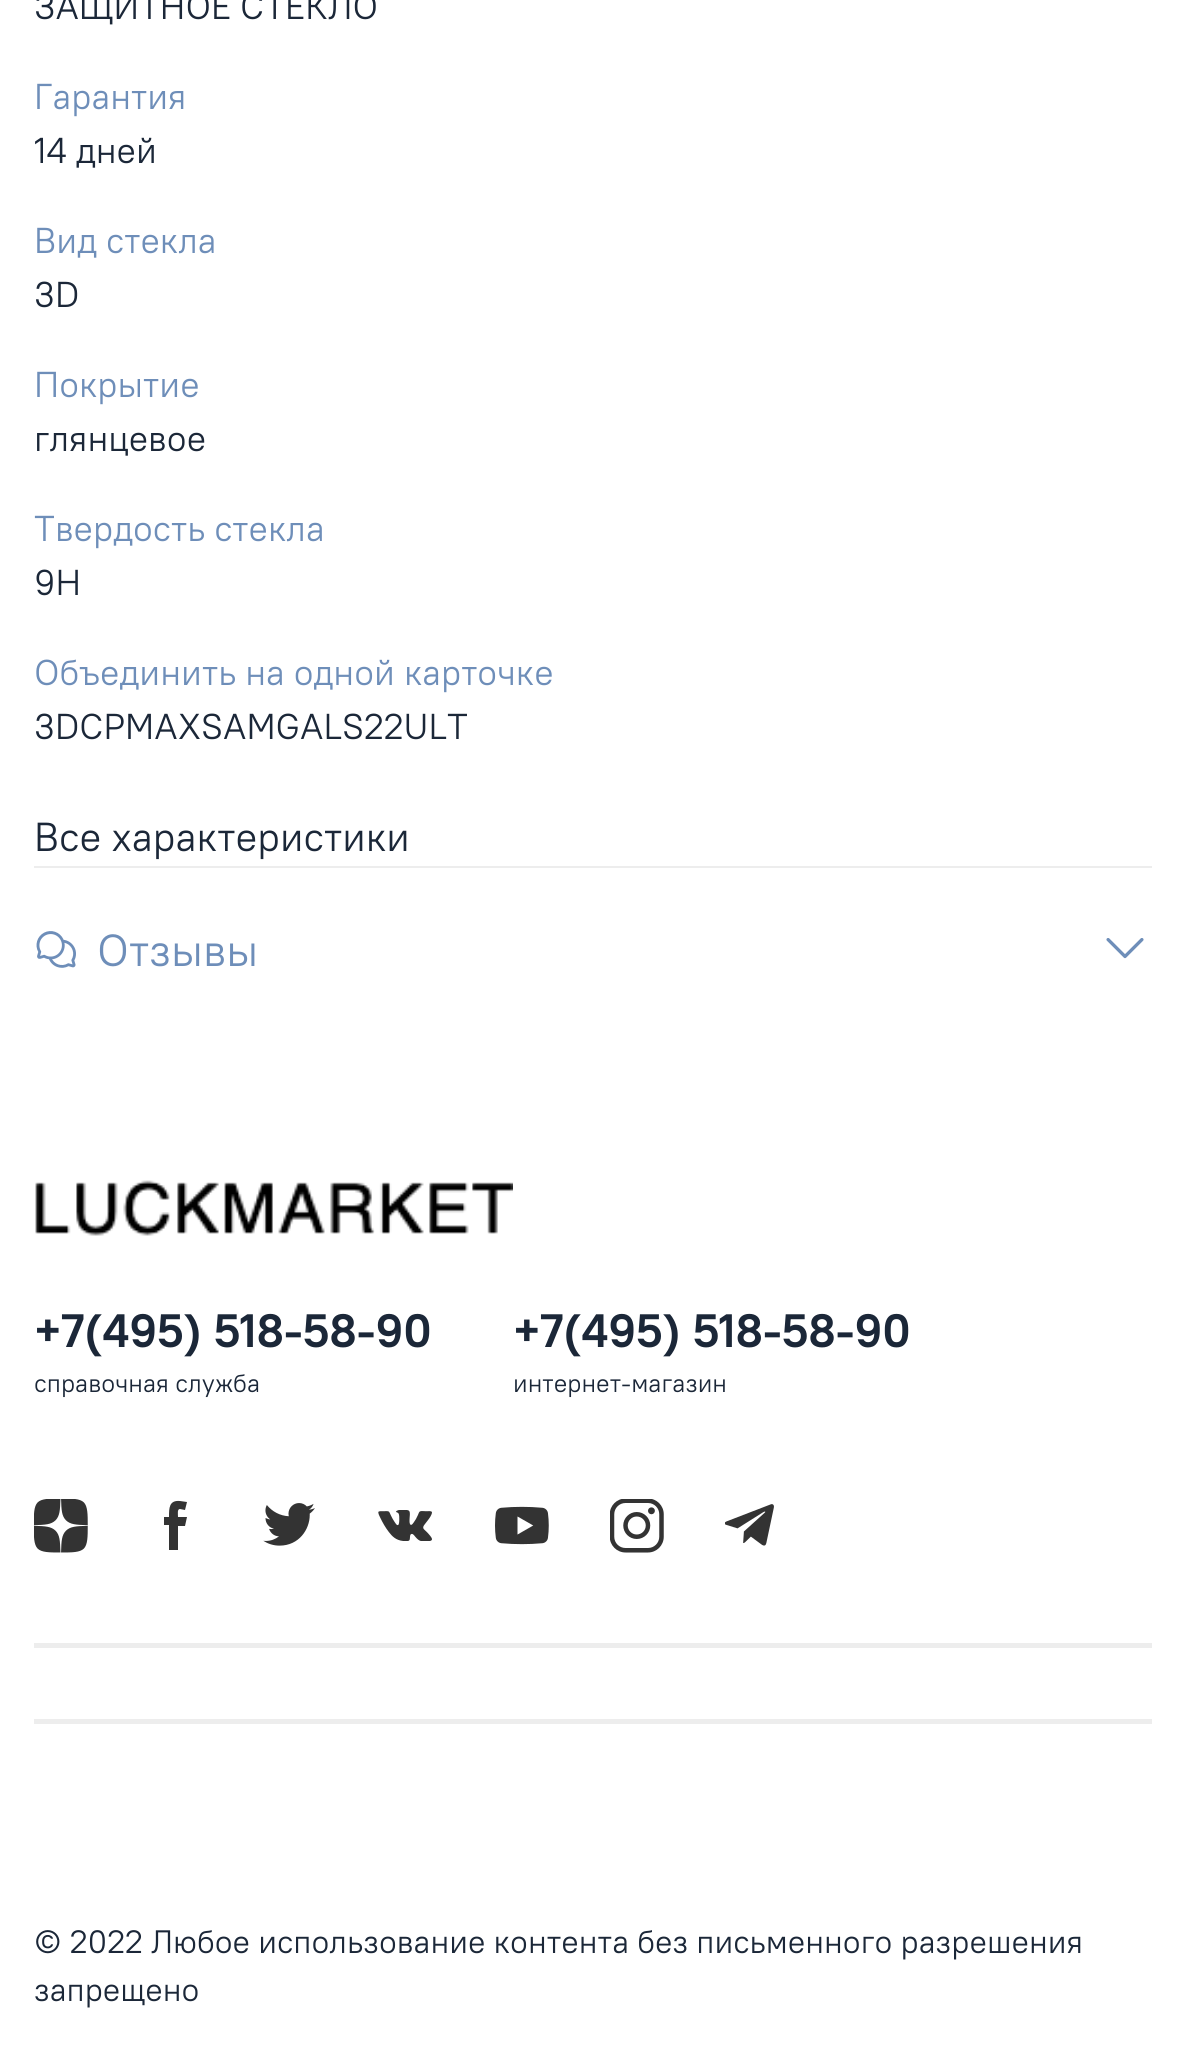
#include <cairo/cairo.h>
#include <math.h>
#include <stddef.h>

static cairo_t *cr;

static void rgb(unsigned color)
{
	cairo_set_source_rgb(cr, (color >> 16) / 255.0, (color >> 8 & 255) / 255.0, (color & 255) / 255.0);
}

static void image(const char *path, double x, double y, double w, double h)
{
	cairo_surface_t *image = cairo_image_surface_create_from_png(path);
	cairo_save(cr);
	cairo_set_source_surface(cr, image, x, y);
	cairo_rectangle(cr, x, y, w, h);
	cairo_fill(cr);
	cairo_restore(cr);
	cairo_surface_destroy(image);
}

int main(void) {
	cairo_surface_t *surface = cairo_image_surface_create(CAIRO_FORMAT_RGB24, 1184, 2070);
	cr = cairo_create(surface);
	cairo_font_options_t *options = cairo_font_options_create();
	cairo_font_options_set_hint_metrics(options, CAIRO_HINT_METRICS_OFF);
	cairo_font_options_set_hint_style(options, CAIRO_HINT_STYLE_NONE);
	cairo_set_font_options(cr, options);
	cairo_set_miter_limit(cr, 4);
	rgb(0xffffff);
	cairo_paint(cr);
	rgb(0xededed);
	cairo_rectangle(cr, 34, 866, 1118, 2);
	cairo_fill(cr);
	image("img/1.png", 36, 931, 40, 37);
	image("img/2.png", 1106, 938, 38, 21);
	image("img/3.png", 35, 1180, 478, 56);
	image("img/4.png", 34, 1499, 54, 54);
	rgb(0x333333);
	cairo_set_fill_rule(cr, CAIRO_FILL_RULE_EVEN_ODD);
	cairo_new_path(cr);
	cairo_move_to(cr, 164, 1517);
	cairo_line_to(cr, 169, 1517);
	cairo_curve_to(cr, 169, 1508, 169, 1500, 180, 1501);
	cairo_line_to(cr, 187, 1502);
	cairo_line_to(cr, 185, 1510);
	cairo_line_to(cr, 180, 1509);
	cairo_curve_to(cr, 177, 1509, 178, 1514, 178, 1517);
	cairo_line_to(cr, 187, 1517);
	cairo_line_to(cr, 185, 1526);
	cairo_line_to(cr, 178, 1526);
	cairo_line_to(cr, 178, 1550);
	cairo_line_to(cr, 169, 1550);
	cairo_line_to(cr, 169, 1525);
	cairo_line_to(cr, 164, 1525);
	cairo_close_path(cr);
	cairo_fill(cr);
	image("img/5.png", 263, 1503, 52, 43);
	image("img/6.png", 378, 1510, 54, 31);
	image("img/7.png", 495, 1506, 54, 39);
	image("img/8.png", 610, 1499, 54, 54);
	image("img/9.png", 725, 1504, 49, 42);
	rgb(0xededed);
	cairo_rectangle(cr, 34, 1643, 1118, 5);
	cairo_fill(cr);
	cairo_rectangle(cr, 34, 1719, 1118, 5);
	cairo_fill(cr);
	cairo_select_font_face(cr, "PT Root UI", CAIRO_FONT_SLANT_NORMAL, CAIRO_FONT_WEIGHT_NORMAL);
	cairo_set_font_size(cr, 36);
	rgb(0x1b2738);
	cairo_move_to(cr, 34, 19);
	cairo_show_text(cr, "ЗАЩИТНОЕ СТЕКЛО");
	rgb(0x6e8eb9);
	cairo_move_to(cr, 34, 109);
	cairo_show_text(cr, "Гарантия");
	rgb(0x1b2738);
	cairo_move_to(cr, 34, 163);
	cairo_show_text(cr, "14 дней");
	rgb(0x6e8eb9);
	cairo_move_to(cr, 34, 253);
	cairo_show_text(cr, "Вид стекла");
	rgb(0x1b2738);
	cairo_move_to(cr, 34, 307);
	cairo_show_text(cr, "3D");
	rgb(0x6e8eb9);
	cairo_move_to(cr, 34, 397);
	cairo_show_text(cr, "Покрытие");
	rgb(0x1b2738);
	cairo_move_to(cr, 34, 451);
	cairo_show_text(cr, "глянцевое");
	rgb(0x6e8eb9);
	cairo_move_to(cr, 34, 541);
	cairo_show_text(cr, "Твердость стекла");
	rgb(0x1b2738);
	cairo_move_to(cr, 34, 595);
	cairo_show_text(cr, "9H");
	rgb(0x6e8eb9);
	cairo_move_to(cr, 34, 685);
	cairo_show_text(cr, "Объединить на одной карточке");
	rgb(0x1b2738);
	cairo_move_to(cr, 34, 739);
	cairo_show_text(cr, "3DCPMAXSAMGALS22ULT");
	cairo_set_font_size(cr, 40.5);
	cairo_move_to(cr, 34, 851);
	cairo_show_text(cr, "Все характеристики");
	cairo_set_font_size(cr, 45);
	rgb(0x6e8eb9);
	cairo_move_to(cr, 97, 966);
	cairo_show_text(cr, "Отзывы");
	cairo_select_font_face(cr, "PT Root UI", CAIRO_FONT_SLANT_NORMAL, CAIRO_FONT_WEIGHT_BOLD);
	cairo_set_font_size(cr, 46.75);
	rgb(0x1b2738);
	cairo_move_to(cr, 34, 1347);
	cairo_show_text(cr, "+7(495) 518-58-90");
	cairo_select_font_face(cr, "PT Root UI", CAIRO_FONT_SLANT_NORMAL, CAIRO_FONT_WEIGHT_NORMAL);
	cairo_set_font_size(cr, 25.25);
	cairo_move_to(cr, 34, 1392);
	cairo_show_text(cr, "справочная служба");
	cairo_select_font_face(cr, "PT Root UI", CAIRO_FONT_SLANT_NORMAL, CAIRO_FONT_WEIGHT_BOLD);
	cairo_set_font_size(cr, 46.75);
	cairo_move_to(cr, 513, 1347);
	cairo_show_text(cr, "+7(495) 518-58-90");
	cairo_select_font_face(cr, "PT Root UI", CAIRO_FONT_SLANT_NORMAL, CAIRO_FONT_WEIGHT_NORMAL);
	cairo_set_font_size(cr, 25.25);
	cairo_move_to(cr, 513, 1392);
	cairo_show_text(cr, "интернет-магазин");
	cairo_set_font_size(cr, 32.4);
	cairo_move_to(cr, 34, 1953);
	cairo_show_text(cr, "© 2022 Любое использование контента без письменного разрешения");
	cairo_move_to(cr, 34, 2001);
	cairo_show_text(cr, "запрещено");
	cairo_surface_write_to_png(surface, "page.png");
	cairo_font_options_destroy(options);
	cairo_destroy(cr);
	cairo_surface_destroy(surface);
	return 0;
}
